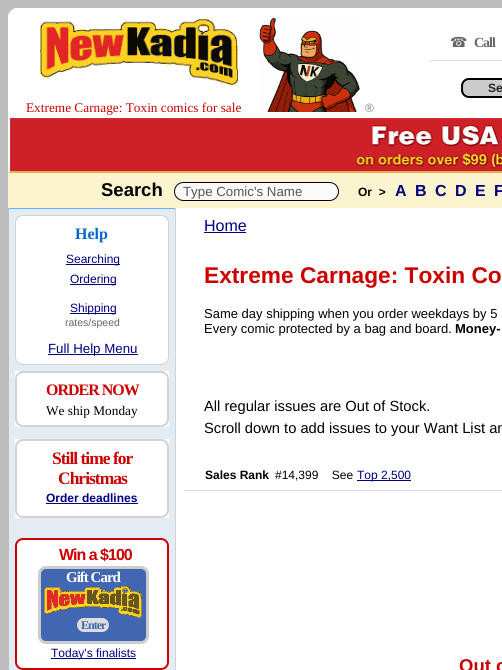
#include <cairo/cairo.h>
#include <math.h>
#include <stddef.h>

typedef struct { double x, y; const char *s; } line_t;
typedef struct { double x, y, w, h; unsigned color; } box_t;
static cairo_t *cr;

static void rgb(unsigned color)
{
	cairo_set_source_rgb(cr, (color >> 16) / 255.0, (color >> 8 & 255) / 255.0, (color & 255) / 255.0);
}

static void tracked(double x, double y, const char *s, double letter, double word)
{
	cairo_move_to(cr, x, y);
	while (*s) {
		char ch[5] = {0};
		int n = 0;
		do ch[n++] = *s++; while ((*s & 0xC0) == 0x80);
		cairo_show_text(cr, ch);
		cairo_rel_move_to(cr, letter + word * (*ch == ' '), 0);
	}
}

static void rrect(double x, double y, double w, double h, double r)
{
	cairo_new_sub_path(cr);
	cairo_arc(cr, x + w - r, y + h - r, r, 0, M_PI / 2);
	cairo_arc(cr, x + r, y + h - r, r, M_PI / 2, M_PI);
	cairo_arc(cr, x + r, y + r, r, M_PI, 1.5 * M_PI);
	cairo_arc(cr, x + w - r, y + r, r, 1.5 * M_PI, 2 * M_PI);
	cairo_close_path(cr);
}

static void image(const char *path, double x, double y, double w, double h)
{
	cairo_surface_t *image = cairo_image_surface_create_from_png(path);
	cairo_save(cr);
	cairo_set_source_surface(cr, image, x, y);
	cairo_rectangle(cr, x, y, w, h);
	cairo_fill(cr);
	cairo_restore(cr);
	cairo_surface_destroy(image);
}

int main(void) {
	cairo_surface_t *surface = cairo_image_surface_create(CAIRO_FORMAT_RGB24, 502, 670);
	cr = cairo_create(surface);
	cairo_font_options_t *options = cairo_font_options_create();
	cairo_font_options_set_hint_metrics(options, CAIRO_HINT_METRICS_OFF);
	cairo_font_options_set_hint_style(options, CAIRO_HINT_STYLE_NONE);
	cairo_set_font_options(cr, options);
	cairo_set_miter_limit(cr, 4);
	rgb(0xbdbdbd);
	cairo_paint(cr);
	rgb(0xffffff);
	cairo_new_path(cr);
	cairo_move_to(cr, 18, 8);
	cairo_line_to(cr, 502, 8);
	cairo_curve_to(cr, 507.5, 8, 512, 12.5, 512, 18);
	cairo_line_to(cr, 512, 173);
	cairo_line_to(cr, 8, 173);
	cairo_line_to(cr, 8, 18);
	cairo_curve_to(cr, 8, 12.5, 12.5, 8, 18, 8);
	cairo_close_path(cr);
	cairo_fill(cr);
	cairo_new_path(cr);
	cairo_move_to(cr, 18, 8);
	cairo_curve_to(cr, 15, 8, 12, 9, 11, 11);
	cairo_line_to(cr, 12, 12);
	cairo_curve_to(cr, 14, 11, 16, 10, 18, 10);
	cairo_line_to(cr, 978, 10);
	cairo_curve_to(cr, 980, 10, 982, 11, 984, 12);
	cairo_line_to(cr, 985, 11);
	cairo_curve_to(cr, 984, 9, 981, 8, 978, 8);
	cairo_close_path(cr);
	cairo_fill(cr);
	rgb(0xe7ad4c);
	cairo_new_path(cr);
	cairo_move_to(cr, 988, 173);
	cairo_line_to(cr, 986, 171);
	cairo_line_to(cr, 10, 171);
	cairo_line_to(cr, 8, 173);
	cairo_close_path(cr);
	cairo_fill(cr);
	rgb(0xffffff);
	cairo_new_path(cr);
	cairo_move_to(cr, 8, 173);
	cairo_line_to(cr, 10, 171);
	cairo_line_to(cr, 10, 18);
	cairo_curve_to(cr, 10, 16, 11, 14, 12, 12);
	cairo_line_to(cr, 11, 11);
	cairo_curve_to(cr, 9, 12, 8, 15, 8, 18);
	cairo_close_path(cr);
	cairo_fill(cr);
	rgb(0xdddddd);
	cairo_rectangle(cr, 429, 60, 73, 1);
	cairo_fill(cr);
	rgb(0xcccccc);
	rrect(462, 79, 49, 18, 7);
	cairo_fill_preserve(cr);
	rgb(0x000000);
	cairo_stroke(cr);
	image("img/1.png", 40, 19, 198, 66);
	image("img/2.png", 259, 17, 101, 95);
	image("img/3.png", 10, 118, 492, 53);
	rgb(0xffffff);
	cairo_rectangle(cr, 176, 208, 326, 462);
	cairo_fill(cr);
	rgb(0xfcf4ce);
	cairo_rectangle(cr, 8, 173, 494, 35);
	cairo_fill(cr);
	rgb(0xfafafa);
	rrect(174.5, 182.5, 164, 18, 9);
	cairo_fill_preserve(cr);
	rgb(0x000000);
	cairo_set_line_width(cr, 1);
	cairo_stroke(cr);
	{
		static const box_t items[] = {
			{8, 208, 168, 1, 0x62b2ff},
			{175, 208, 1, 462, 0xd3d3d3},
			{8, 208, 1, 1, 0xbdbdbd},
			{9, 209, 166, 461, 0xe3ebf3},
		};
		for (size_t i = 0; i < sizeof items / sizeof *items; i++) {
			rgb(items[i].color);
			cairo_rectangle(cr, items[i].x, items[i].y, items[i].w, items[i].h);
			cairo_fill(cr);
		}
	}
	rgb(0xffffff);
	rrect(15.5, 215.5, 153, 149, 7.5);
	cairo_fill_preserve(cr);
	rgb(0xd3d3d3);
	cairo_stroke(cr);
	{
		static const box_t items[] = {
			{66, 264, 54, 1, 0x000080},
			{70, 284, 46, 1, 0x000080},
			{70, 313, 46, 1, 0x000080},
			{48, 354, 90, 1, 0x000080},
			{15, 371, 154, 56, 0xffffff},
		};
		for (size_t i = 0; i < sizeof items / sizeof *items; i++) {
			rgb(items[i].color);
			cairo_rectangle(cr, items[i].x, items[i].y, items[i].w, items[i].h);
			cairo_fill(cr);
		}
	}
	rrect(16, 372, 152, 54, 7);
	rgb(0xd3d3d3);
	cairo_set_line_width(cr, 2);
	cairo_stroke(cr);
	rgb(0xffffff);
	cairo_rectangle(cr, 15, 439, 154, 79);
	cairo_fill(cr);
	rrect(16, 440, 152, 77, 7);
	rgb(0xd3d3d3);
	cairo_stroke(cr);
	rgb(0x000080);
	cairo_rectangle(cr, 46, 503, 92, 1);
	cairo_fill(cr);
	rgb(0xffffff);
	rrect(16, 539, 152, 130, 7);
	cairo_fill_preserve(cr);
	rgb(0xcc0000);
	cairo_stroke(cr);
	rgb(0x4267b2);
	rrect(39.5, 567.5, 108, 75, 6.5);
	cairo_fill_preserve(cr);
	rgb(0xcccccc);
	cairo_set_line_width(cr, 3);
	cairo_stroke(cr);
	image("img/4.png", 44, 586, 98, 32);
	rgb(0xdddddd);
	rrect(77, 618, 32, 14, 7);
	cairo_fill(cr);
	{
		static const box_t items[] = {
			{51, 658, 85, 1, 0x000080},
			{204, 232, 42, 1, 0x000080},
			{357, 480, 54, 1, 0x000080},
			{183, 490, 319, 1, 0xdddddd},
			{183, 490, 1, 1, 0xffffff},
		};
		for (size_t i = 0; i < sizeof items / sizeof *items; i++) {
			rgb(items[i].color);
			cairo_rectangle(cr, items[i].x, items[i].y, items[i].w, items[i].h);
			cairo_fill(cr);
		}
	}
	cairo_select_font_face(cr, "DejaVu Sans", CAIRO_FONT_SLANT_NORMAL, CAIRO_FONT_WEIGHT_NORMAL);
	cairo_set_font_size(cr, 14);
	rgb(0x666666);
	tracked(450, 47, "☎", -1, 0);
	cairo_select_font_face(cr, "Liberation Serif", CAIRO_FONT_SLANT_NORMAL, CAIRO_FONT_WEIGHT_BOLD);
	tracked(474, 47, "Call", -1, 0);
	cairo_select_font_face(cr, "Liberation Sans", CAIRO_FONT_SLANT_NORMAL, CAIRO_FONT_WEIGHT_BOLD);
	cairo_set_font_size(cr, 12);
	rgb(0x222222);
	cairo_move_to(cr, 488, 92);
	cairo_show_text(cr, "Se");
	cairo_select_font_face(cr, "Liberation Serif", CAIRO_FONT_SLANT_NORMAL, CAIRO_FONT_WEIGHT_NORMAL);
	cairo_set_font_size(cr, 13.3);
	rgb(0xcc0000);
	cairo_move_to(cr, 26, 112);
	cairo_show_text(cr, "Extreme Carnage: Toxin comics for sale");
	cairo_select_font_face(cr, "Liberation Sans", CAIRO_FONT_SLANT_NORMAL, CAIRO_FONT_WEIGHT_NORMAL);
	cairo_set_font_size(cr, 12);
	rgb(0x808080);
	cairo_move_to(cr, 365, 112);
	cairo_show_text(cr, "®");
	cairo_select_font_face(cr, "Liberation Sans", CAIRO_FONT_SLANT_NORMAL, CAIRO_FONT_WEIGHT_BOLD);
	cairo_set_font_size(cr, 18.5);
	rgb(0x000000);
	cairo_move_to(cr, 101, 196);
	cairo_show_text(cr, "Search");
	cairo_select_font_face(cr, "Liberation Sans", CAIRO_FONT_SLANT_NORMAL, CAIRO_FONT_WEIGHT_NORMAL);
	cairo_set_font_size(cr, 13.3);
	rgb(0x555555);
	cairo_move_to(cr, 183, 196);
	cairo_show_text(cr, "Type Comic's Name");
	cairo_select_font_face(cr, "Liberation Sans", CAIRO_FONT_SLANT_NORMAL, CAIRO_FONT_WEIGHT_BOLD);
	cairo_set_font_size(cr, 12);
	rgb(0x000000);
	cairo_move_to(cr, 358, 196);
	cairo_show_text(cr, "Or  >");
	cairo_set_font_size(cr, 16);
	rgb(0x000080);
	tracked(395, 196, "A B C D E F", 2, 0);
	cairo_select_font_face(cr, "Liberation Serif", CAIRO_FONT_SLANT_NORMAL, CAIRO_FONT_WEIGHT_BOLD);
	rgb(0x0066cc);
	cairo_move_to(cr, 75, 239);
	cairo_show_text(cr, "Help");
	cairo_select_font_face(cr, "Liberation Sans", CAIRO_FONT_SLANT_NORMAL, CAIRO_FONT_WEIGHT_NORMAL);
	cairo_set_font_size(cr, 12);
	rgb(0x000080);
	{
		static const line_t items[] = {
			{66, 263, "Searching"},
			{70, 283, "Ordering"},
			{70, 312, "Shipping"},
		};
		for (size_t i = 0; i < sizeof items / sizeof *items; i++) {
			cairo_move_to(cr, items[i].x, items[i].y);
			cairo_show_text(cr, items[i].s);
		}
	}
	cairo_set_font_size(cr, 10.5);
	rgb(0x666666);
	cairo_move_to(cr, 65, 326);
	cairo_show_text(cr, "rates/speed");
	cairo_set_font_size(cr, 13.3);
	rgb(0x000080);
	cairo_move_to(cr, 48, 353);
	cairo_show_text(cr, "Full Help Menu");
	cairo_select_font_face(cr, "Liberation Serif", CAIRO_FONT_SLANT_NORMAL, CAIRO_FONT_WEIGHT_BOLD);
	cairo_set_font_size(cr, 16);
	rgb(0xcc0000);
	tracked(46, 395, "ORDER NOW", -1, 0);
	cairo_select_font_face(cr, "Liberation Serif", CAIRO_FONT_SLANT_NORMAL, CAIRO_FONT_WEIGHT_NORMAL);
	cairo_set_font_size(cr, 13.3);
	rgb(0x000000);
	cairo_move_to(cr, 46, 415);
	cairo_show_text(cr, "We ship Monday");
	cairo_select_font_face(cr, "Liberation Serif", CAIRO_FONT_SLANT_NORMAL, CAIRO_FONT_WEIGHT_BOLD);
	cairo_set_font_size(cr, 17.5);
	rgb(0xcc0000);
	tracked(52, 464, "Still time for", -1, 0);
	tracked(58, 484, "Christmas", -1, 0);
	cairo_select_font_face(cr, "Liberation Sans", CAIRO_FONT_SLANT_NORMAL, CAIRO_FONT_WEIGHT_BOLD);
	cairo_set_font_size(cr, 12);
	rgb(0x000080);
	cairo_move_to(cr, 46, 502);
	cairo_show_text(cr, "Order deadlines");
	cairo_set_font_size(cr, 16);
	rgb(0xcc0000);
	tracked(59, 560, "Win a $100", -1, 0);
	cairo_select_font_face(cr, "Liberation Serif", CAIRO_FONT_SLANT_NORMAL, CAIRO_FONT_WEIGHT_BOLD);
	cairo_set_font_size(cr, 15);
	rgb(0xffffff);
	tracked(66, 582, "Gift Card", -1, 0);
	cairo_set_font_size(cr, 12);
	rgb(0x4267b2);
	tracked(81, 629, "Enter", -1, 0);
	cairo_select_font_face(cr, "Liberation Sans", CAIRO_FONT_SLANT_NORMAL, CAIRO_FONT_WEIGHT_NORMAL);
	rgb(0x000080);
	cairo_move_to(cr, 51, 657);
	cairo_show_text(cr, "Today's finalists");
	cairo_set_font_size(cr, 16);
	cairo_move_to(cr, 204, 231);
	cairo_show_text(cr, "Home");
	cairo_select_font_face(cr, "Liberation Sans", CAIRO_FONT_SLANT_NORMAL, CAIRO_FONT_WEIGHT_BOLD);
	cairo_set_font_size(cr, 22.7);
	rgb(0xcc0000);
	cairo_move_to(cr, 204, 283);
	cairo_show_text(cr, "Extreme Carnage: Toxin Co");
	cairo_select_font_face(cr, "Liberation Sans", CAIRO_FONT_SLANT_NORMAL, CAIRO_FONT_WEIGHT_NORMAL);
	cairo_set_font_size(cr, 13);
	rgb(0x000000);
	cairo_move_to(cr, 204, 318);
	cairo_show_text(cr, "Same day shipping when you order weekdays by 5");
	cairo_move_to(cr, 204, 333);
	cairo_show_text(cr, "Every comic protected by a bag and board.");
	cairo_select_font_face(cr, "Liberation Sans", CAIRO_FONT_SLANT_NORMAL, CAIRO_FONT_WEIGHT_BOLD);
	cairo_move_to(cr, 455, 333);
	cairo_show_text(cr, "Money-");
	cairo_select_font_face(cr, "Liberation Sans", CAIRO_FONT_SLANT_NORMAL, CAIRO_FONT_WEIGHT_NORMAL);
	cairo_set_font_size(cr, 14.7);
	cairo_move_to(cr, 204, 411);
	cairo_show_text(cr, "All regular issues are Out of Stock.");
	cairo_move_to(cr, 204, 433);
	cairo_show_text(cr, "Scroll down to add issues to your Want List an");
	cairo_select_font_face(cr, "Liberation Sans", CAIRO_FONT_SLANT_NORMAL, CAIRO_FONT_WEIGHT_BOLD);
	cairo_set_font_size(cr, 12);
	cairo_move_to(cr, 205, 479);
	cairo_show_text(cr, "Sales Rank");
	cairo_select_font_face(cr, "Liberation Sans", CAIRO_FONT_SLANT_NORMAL, CAIRO_FONT_WEIGHT_NORMAL);
	cairo_move_to(cr, 275, 479);
	cairo_show_text(cr, "#14,399    See");
	rgb(0x000080);
	cairo_move_to(cr, 357, 479);
	cairo_show_text(cr, "Top 2,500");
	cairo_select_font_face(cr, "Liberation Sans", CAIRO_FONT_SLANT_NORMAL, CAIRO_FONT_WEIGHT_BOLD);
	cairo_set_font_size(cr, 18.5);
	rgb(0xcc0000);
	cairo_move_to(cr, 459, 672);
	cairo_show_text(cr, "Out o");
	cairo_surface_write_to_png(surface, "page.png");
	cairo_font_options_destroy(options);
	cairo_destroy(cr);
	cairo_surface_destroy(surface);
	return 0;
}
